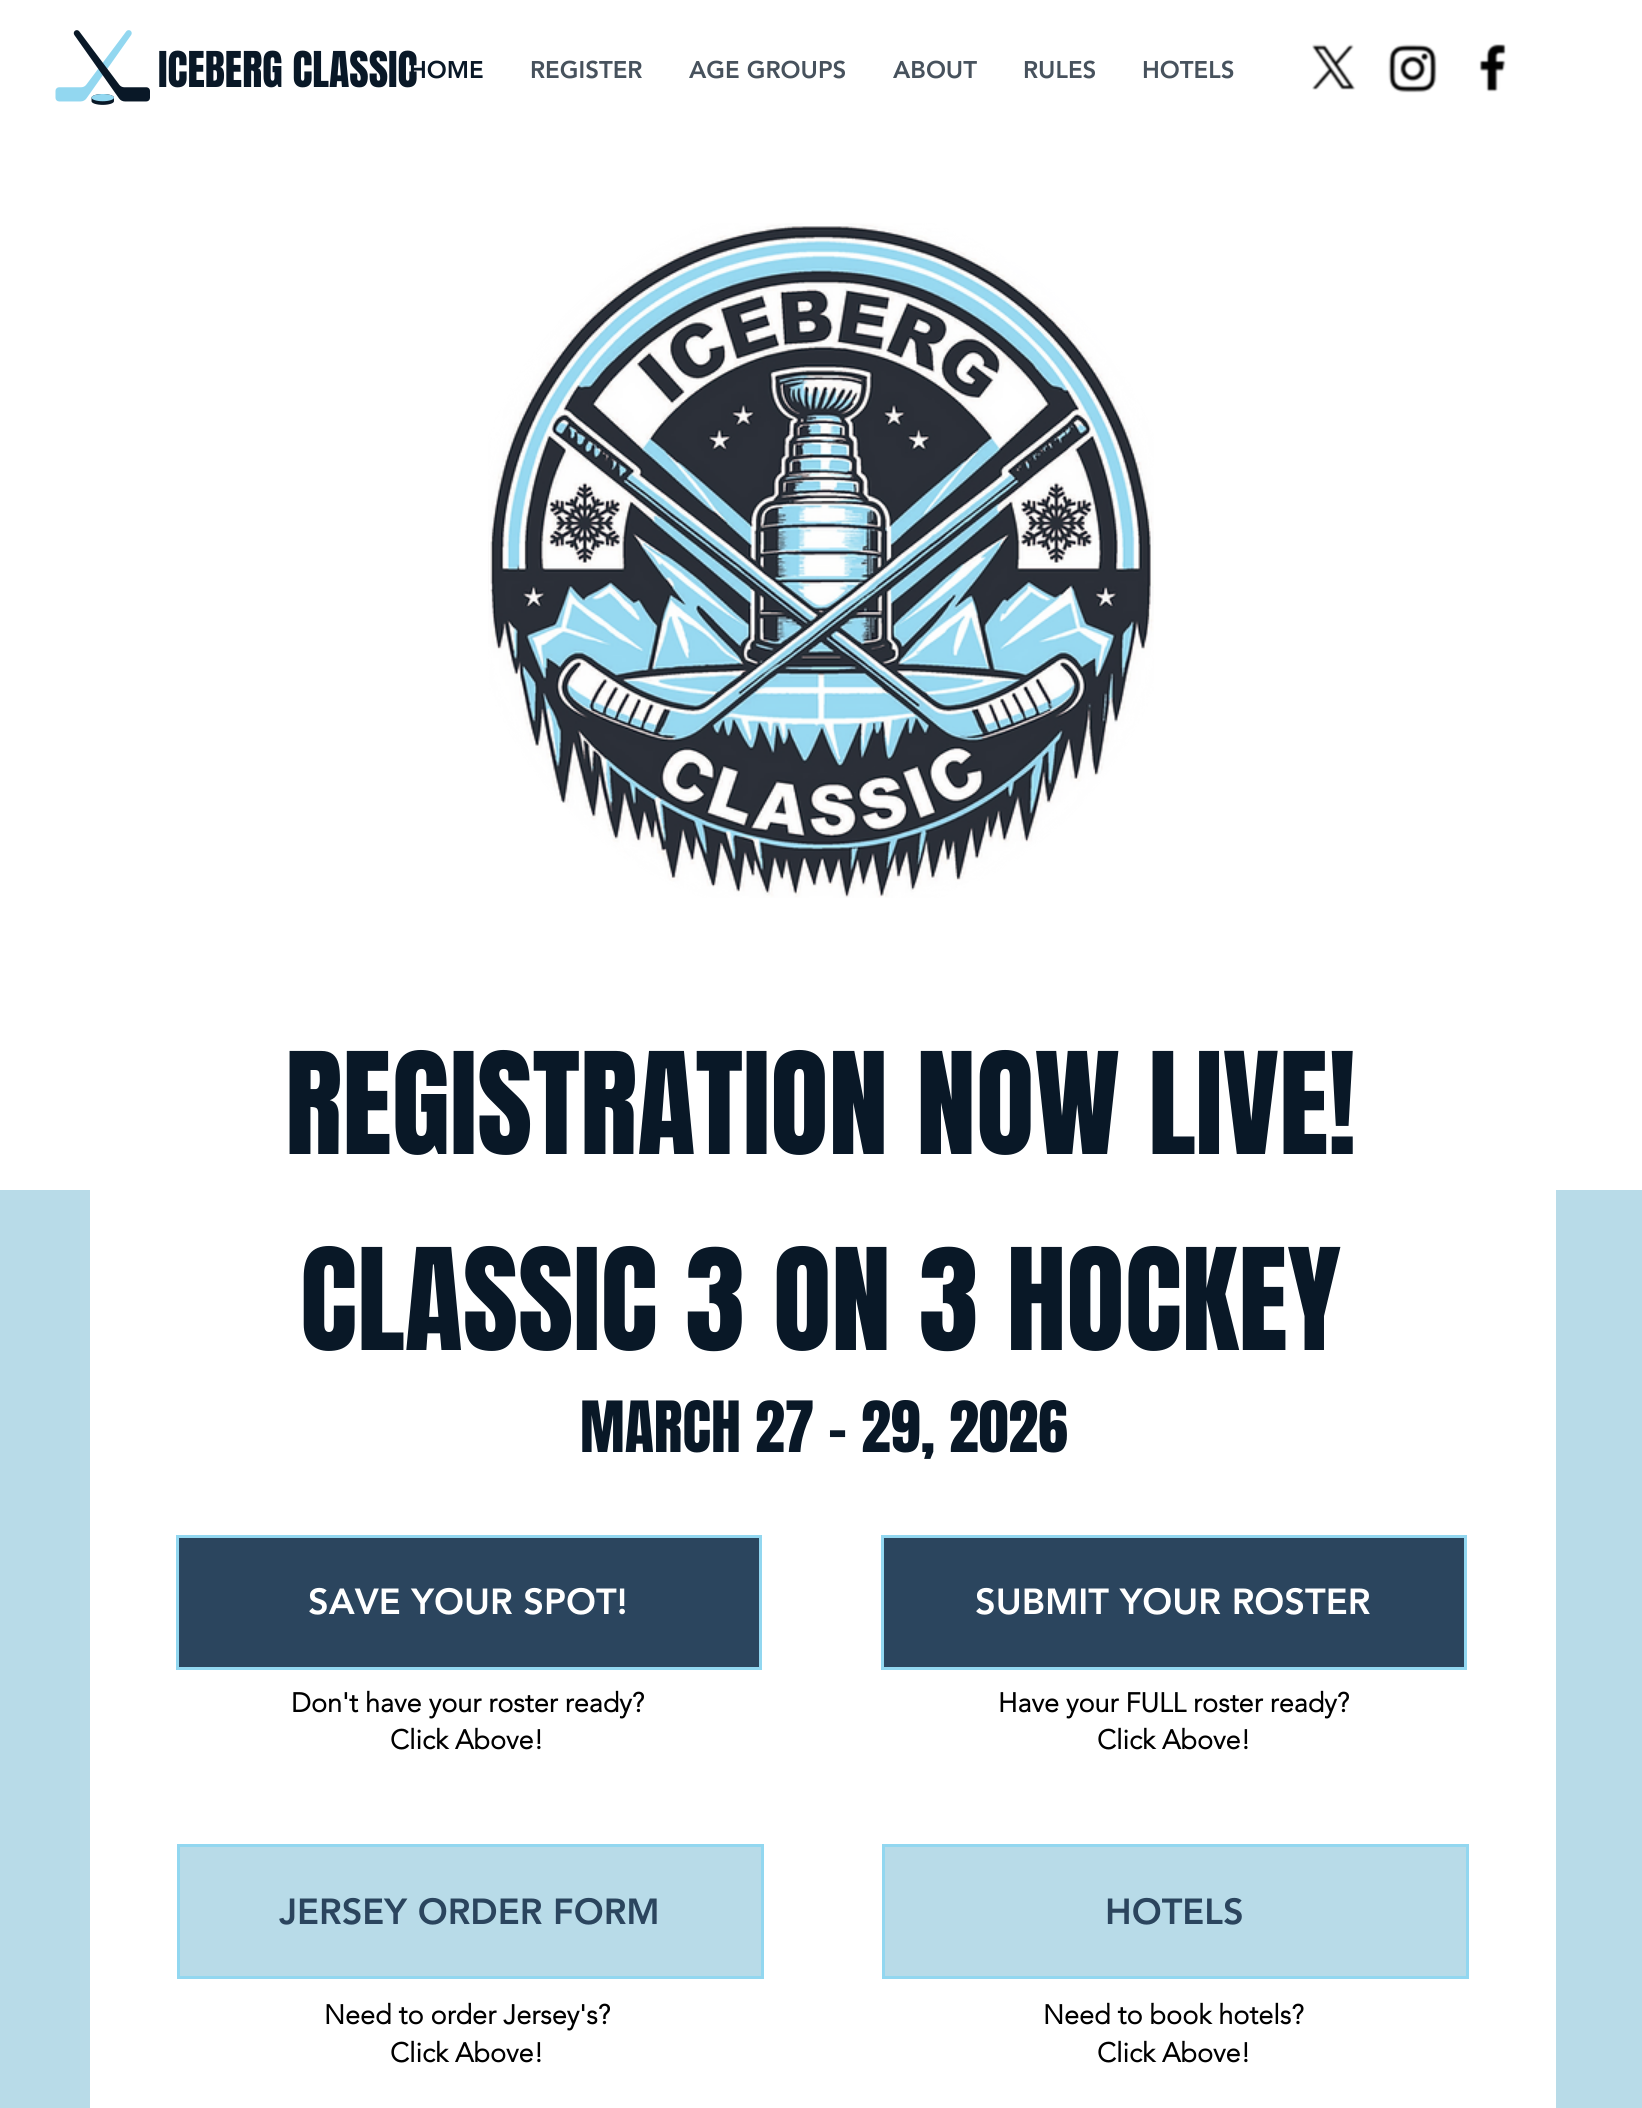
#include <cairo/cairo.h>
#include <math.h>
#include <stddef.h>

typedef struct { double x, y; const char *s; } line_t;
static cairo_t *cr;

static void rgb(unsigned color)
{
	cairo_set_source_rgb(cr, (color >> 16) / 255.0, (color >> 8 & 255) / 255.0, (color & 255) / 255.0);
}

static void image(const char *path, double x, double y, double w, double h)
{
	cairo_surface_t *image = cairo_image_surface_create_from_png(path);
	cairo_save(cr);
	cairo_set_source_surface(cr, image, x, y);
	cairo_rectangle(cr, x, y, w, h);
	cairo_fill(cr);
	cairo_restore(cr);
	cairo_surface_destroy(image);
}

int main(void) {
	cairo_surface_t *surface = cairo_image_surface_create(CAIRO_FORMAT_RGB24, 1642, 2108);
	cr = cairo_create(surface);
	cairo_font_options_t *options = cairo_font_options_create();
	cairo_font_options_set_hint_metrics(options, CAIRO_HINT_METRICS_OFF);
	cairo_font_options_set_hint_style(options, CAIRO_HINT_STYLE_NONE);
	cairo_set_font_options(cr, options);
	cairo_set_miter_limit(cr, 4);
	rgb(0xffffff);
	cairo_paint(cr);
	image("img/1.png", 55, 30, 95, 75);
	image("img/2.png", 1312, 44, 44, 46);
	image("img/3.png", 1388, 44, 49, 49);
	image("img/4.png", 1479, 44, 27, 48);
	image("img/5.png", 488, 223, 666, 675);
	rgb(0xb8dbe8);
	cairo_rectangle(cr, 0, 1190, 1642, 918);
	cairo_fill(cr);
	rgb(0xffffff);
	cairo_rectangle(cr, 90, 1190, 1466, 918);
	cairo_fill(cr);
	rgb(0x2b455e);
	cairo_rectangle(cr, 177.5, 1536.5, 583, 132);
	cairo_fill_preserve(cr);
	rgb(0x92d7f0);
	cairo_set_line_width(cr, 3);
	cairo_stroke(cr);
	rgb(0x2b455e);
	cairo_rectangle(cr, 882.5, 1536.5, 583, 132);
	cairo_fill_preserve(cr);
	rgb(0x92d7f0);
	cairo_stroke(cr);
	rgb(0xb8dbe8);
	cairo_rectangle(cr, 178.5, 1845.5, 584, 132);
	cairo_fill_preserve(cr);
	rgb(0x92d7f0);
	cairo_stroke(cr);
	rgb(0xb8dbe8);
	cairo_rectangle(cr, 883.5, 1845.5, 584, 132);
	cairo_fill_preserve(cr);
	rgb(0x92d7f0);
	cairo_stroke(cr);
	cairo_select_font_face(cr, "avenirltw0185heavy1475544 Black", CAIRO_FONT_SLANT_NORMAL, CAIRO_FONT_WEIGHT_NORMAL);
	cairo_set_font_size(cr, 24);
	rgb(0x091827);
	cairo_move_to(cr, 409, 78);
	cairo_show_text(cr, "HOME");
	cairo_select_font_face(cr, "Anton", CAIRO_FONT_SLANT_NORMAL, CAIRO_FONT_WEIGHT_NORMAL);
	cairo_set_font_size(cr, 42);
	cairo_move_to(cr, 158, 87);
	cairo_show_text(cr, "ICEBERG CLASSIC");
	cairo_select_font_face(cr, "avenirltw0185heavy1475544 Black", CAIRO_FONT_SLANT_NORMAL, CAIRO_FONT_WEIGHT_NORMAL);
	cairo_set_font_size(cr, 24);
	rgb(0x47525d);
	{
		static const line_t items[] = {
			{530, 78, "REGISTER"},
			{689, 78, "AGE GROUPS"},
			{893, 78, "ABOUT"},
			{1023, 78, "RULES"},
			{1142, 78, "HOTELS"},
		};
		for (size_t i = 0; i < sizeof items / sizeof *items; i++) {
			cairo_move_to(cr, items[i].x, items[i].y);
			cairo_show_text(cr, items[i].s);
		}
	}
	cairo_select_font_face(cr, "Anton", CAIRO_FONT_SLANT_NORMAL, CAIRO_FONT_WEIGHT_NORMAL);
	cairo_set_font_size(cr, 120);
	rgb(0x091827);
	cairo_move_to(cr, 285, 1154);
	cairo_show_text(cr, "REGISTRATION NOW LIVE!");
	cairo_move_to(cr, 300, 1350);
	cairo_show_text(cr, "CLASSIC 3 ON 3 HOCKEY");
	cairo_set_font_size(cr, 60);
	cairo_move_to(cr, 580, 1452);
	cairo_show_text(cr, "MARCH 27 - 29, 2026");
	cairo_select_font_face(cr, "avenirltw0185heavy1475544 Black", CAIRO_FONT_SLANT_NORMAL, CAIRO_FONT_WEIGHT_NORMAL);
	cairo_set_font_size(cr, 36);
	rgb(0xffffff);
	cairo_move_to(cr, 308, 1614);
	cairo_show_text(cr, "SAVE YOUR SPOT!");
	cairo_move_to(cr, 975, 1614);
	cairo_show_text(cr, "SUBMIT YOUR ROSTER");
	cairo_select_font_face(cr, "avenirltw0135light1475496", CAIRO_FONT_SLANT_NORMAL, CAIRO_FONT_WEIGHT_BOLD);
	cairo_set_font_size(cr, 27);
	rgb(0x000000);
	{
		static const line_t items[] = {
			{291, 1712, "Don't have your roster ready?"},
			{390, 1749, "Click Above!"},
			{998, 1712, "Have your FULL roster ready?"},
			{1097, 1749, "Click Above!"},
		};
		for (size_t i = 0; i < sizeof items / sizeof *items; i++) {
			cairo_move_to(cr, items[i].x, items[i].y);
			cairo_show_text(cr, items[i].s);
		}
	}
	cairo_select_font_face(cr, "avenirltw0185heavy1475544 Black", CAIRO_FONT_SLANT_NORMAL, CAIRO_FONT_WEIGHT_NORMAL);
	cairo_set_font_size(cr, 36);
	rgb(0x2b455e);
	cairo_move_to(cr, 279, 1924);
	cairo_show_text(cr, "JERSEY ORDER FORM");
	cairo_move_to(cr, 1105, 1924);
	cairo_show_text(cr, "HOTELS");
	cairo_select_font_face(cr, "avenirltw0135light1475496", CAIRO_FONT_SLANT_NORMAL, CAIRO_FONT_WEIGHT_BOLD);
	cairo_set_font_size(cr, 27);
	rgb(0x000000);
	{
		static const line_t items[] = {
			{324, 2024, "Need to order Jersey's?"},
			{390, 2062, "Click Above!"},
			{1043, 2024, "Need to book hotels?"},
			{1097, 2062, "Click Above!"},
		};
		for (size_t i = 0; i < sizeof items / sizeof *items; i++) {
			cairo_move_to(cr, items[i].x, items[i].y);
			cairo_show_text(cr, items[i].s);
		}
	}
	cairo_surface_write_to_png(surface, "page.png");
	cairo_font_options_destroy(options);
	cairo_destroy(cr);
	cairo_surface_destroy(surface);
	return 0;
}
